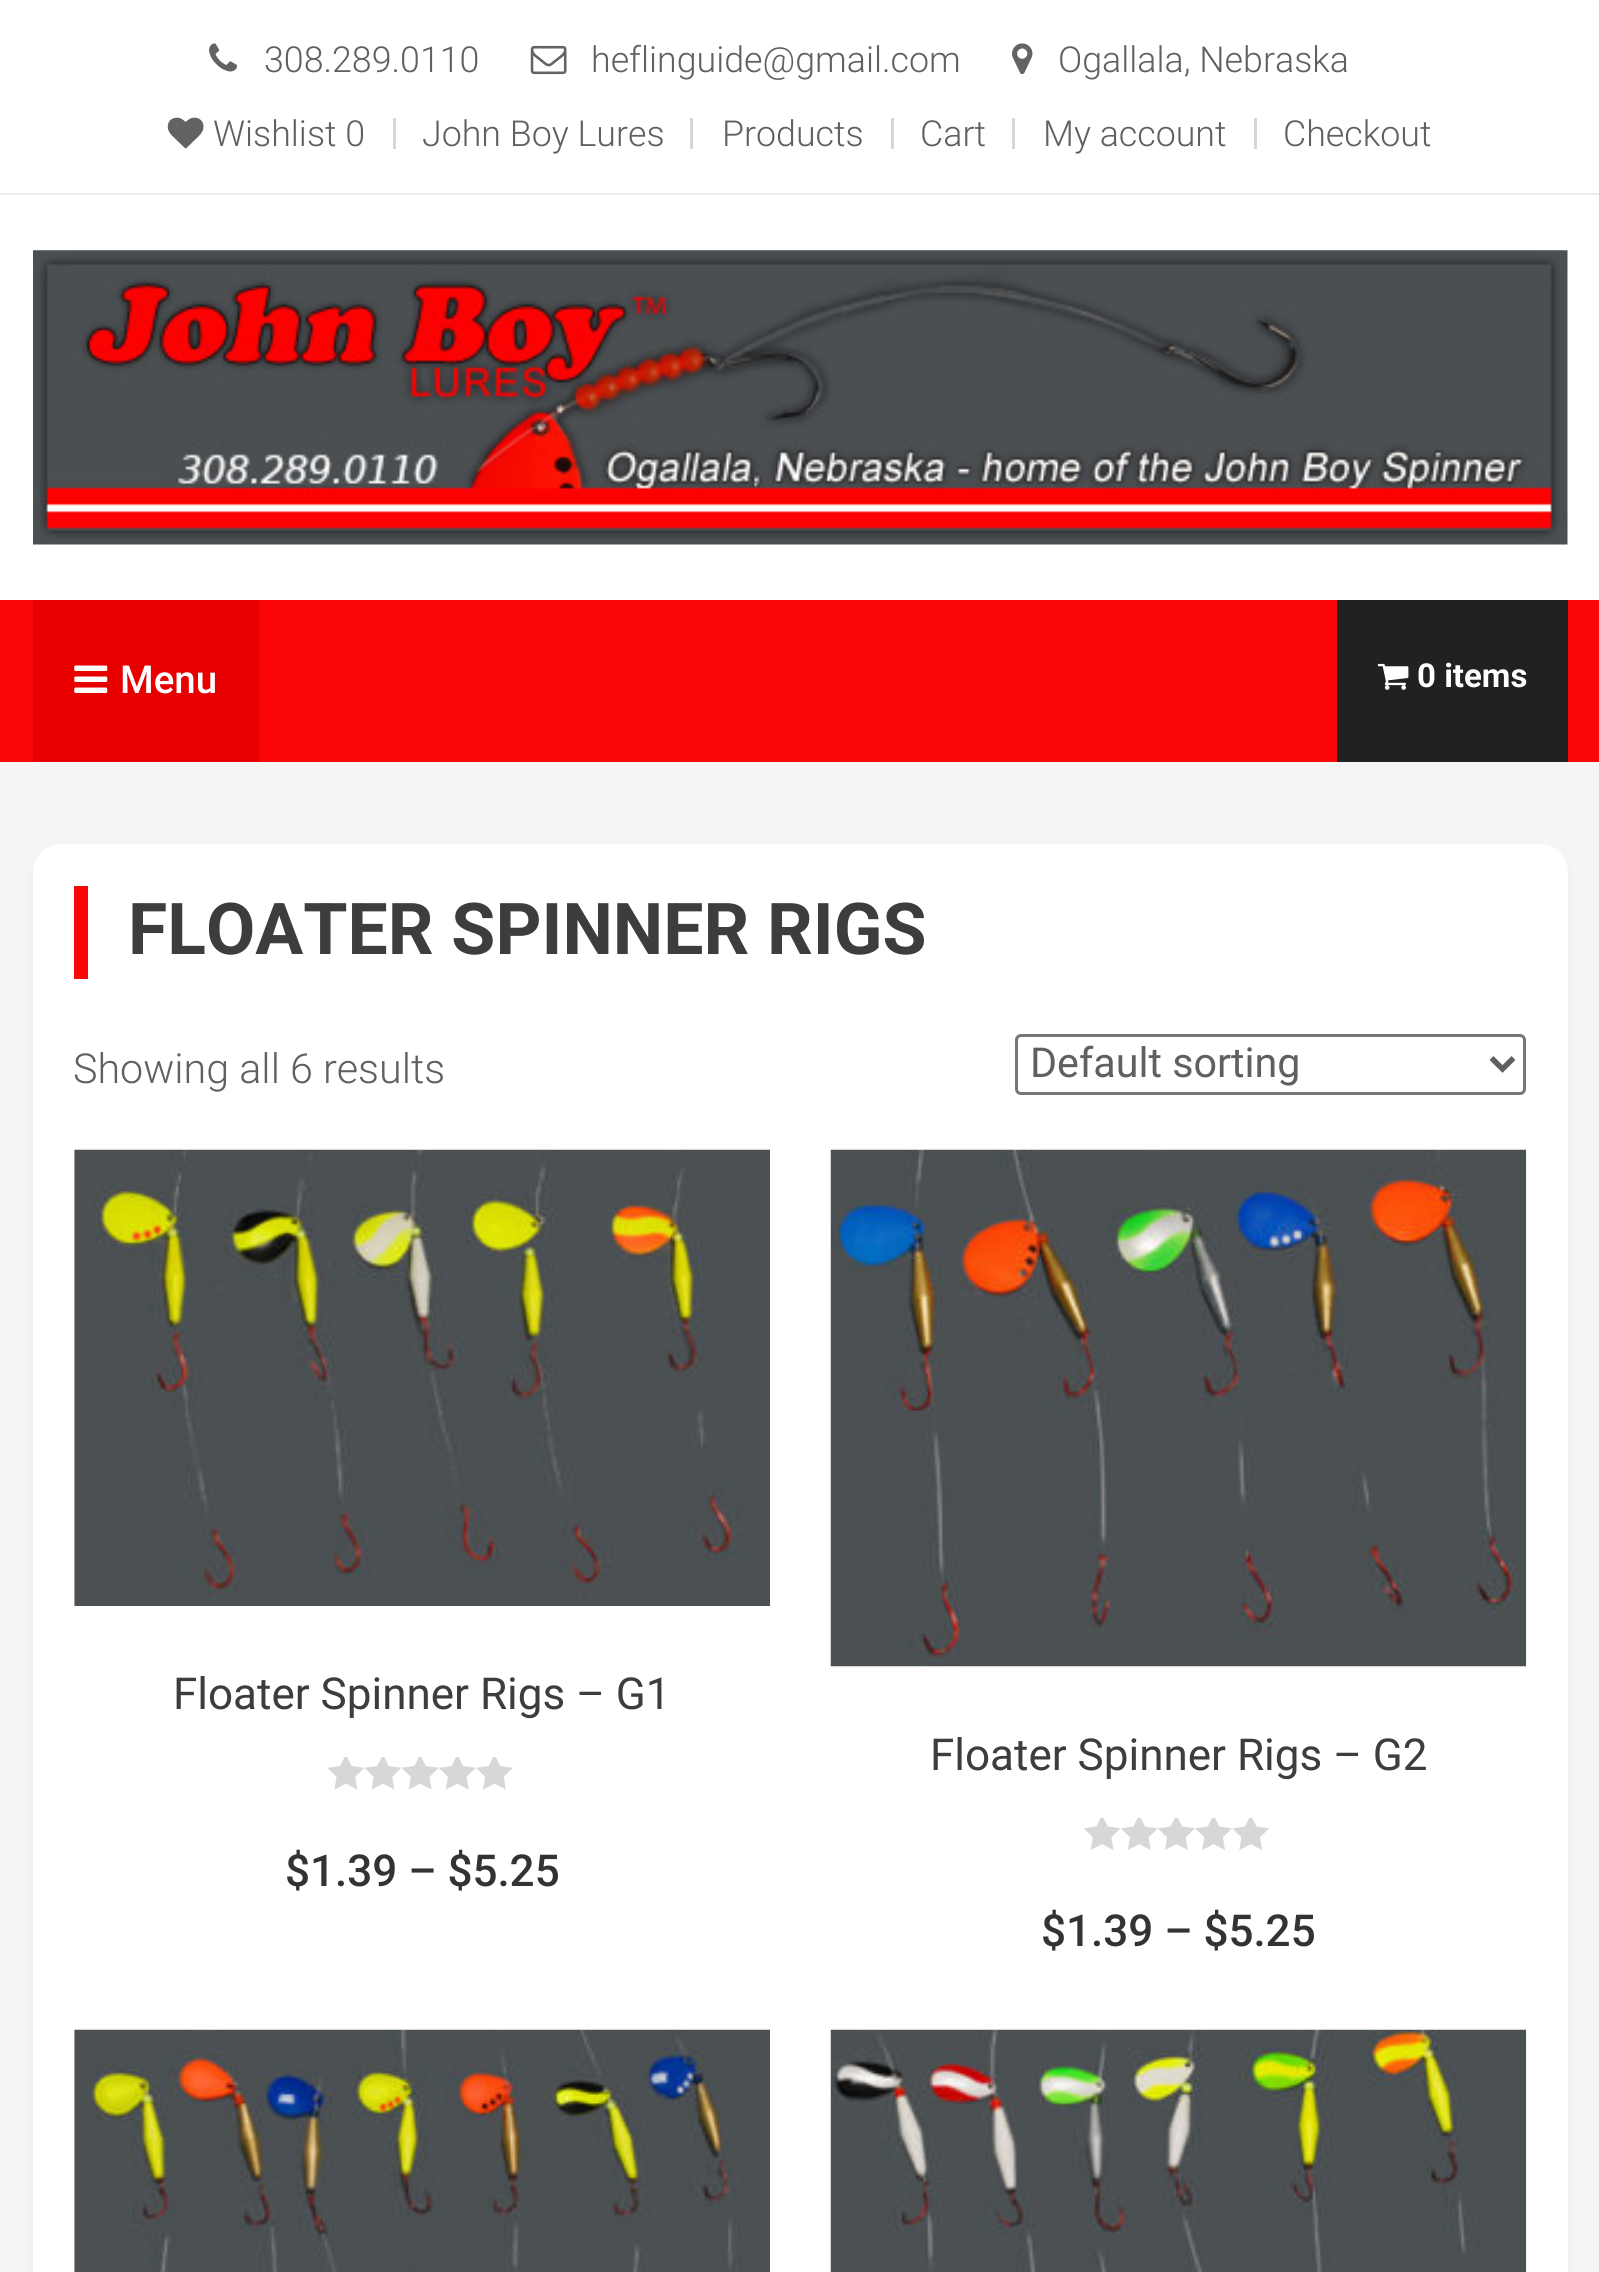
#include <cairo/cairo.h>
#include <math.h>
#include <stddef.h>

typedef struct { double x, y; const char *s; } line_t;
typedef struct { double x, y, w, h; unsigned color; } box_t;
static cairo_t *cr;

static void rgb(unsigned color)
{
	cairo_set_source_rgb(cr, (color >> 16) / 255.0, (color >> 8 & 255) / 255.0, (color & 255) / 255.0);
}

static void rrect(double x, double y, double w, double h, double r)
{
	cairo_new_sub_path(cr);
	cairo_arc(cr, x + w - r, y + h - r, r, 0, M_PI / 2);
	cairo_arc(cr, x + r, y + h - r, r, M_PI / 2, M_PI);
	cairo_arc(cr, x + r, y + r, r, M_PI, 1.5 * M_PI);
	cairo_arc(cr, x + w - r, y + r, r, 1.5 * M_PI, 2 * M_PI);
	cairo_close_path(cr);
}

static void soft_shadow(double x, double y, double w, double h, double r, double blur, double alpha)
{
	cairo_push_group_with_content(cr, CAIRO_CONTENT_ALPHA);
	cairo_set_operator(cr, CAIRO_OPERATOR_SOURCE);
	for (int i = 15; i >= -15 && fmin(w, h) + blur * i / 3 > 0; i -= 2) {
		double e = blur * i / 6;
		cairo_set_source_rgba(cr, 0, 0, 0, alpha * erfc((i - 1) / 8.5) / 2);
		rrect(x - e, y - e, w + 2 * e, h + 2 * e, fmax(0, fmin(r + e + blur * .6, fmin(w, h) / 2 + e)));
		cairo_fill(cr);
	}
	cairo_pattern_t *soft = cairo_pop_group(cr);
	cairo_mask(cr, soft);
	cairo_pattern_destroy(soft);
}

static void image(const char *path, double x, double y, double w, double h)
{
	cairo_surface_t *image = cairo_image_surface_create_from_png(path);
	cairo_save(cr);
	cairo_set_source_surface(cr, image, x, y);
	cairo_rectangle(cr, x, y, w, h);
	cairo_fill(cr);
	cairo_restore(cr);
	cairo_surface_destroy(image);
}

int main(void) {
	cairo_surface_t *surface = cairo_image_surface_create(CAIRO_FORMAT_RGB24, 1599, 2272);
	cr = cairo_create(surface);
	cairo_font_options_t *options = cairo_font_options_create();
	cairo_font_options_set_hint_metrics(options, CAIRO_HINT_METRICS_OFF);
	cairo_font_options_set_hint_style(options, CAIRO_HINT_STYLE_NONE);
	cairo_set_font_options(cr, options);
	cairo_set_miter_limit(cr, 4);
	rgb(0xf5f5f5);
	cairo_paint(cr);
	rgb(0xffffff);
	cairo_rectangle(cr, 0, 0, 1599, 193);
	cairo_fill(cr);
	rgb(0xededed);
	cairo_rectangle(cr, 0, 193, 1599, 2);
	cairo_fill(cr);
	image("img/1.png", 209, 43, 29, 29);
	image("img/2.png", 530, 45, 37, 30);
	image("img/3.png", 1012, 43, 21, 31);
	image("img/4.png", 167, 117, 37, 32);
	{
		static const box_t items[] = {
			{393, 118, 3, 31, 0xd6d6d6},
			{690, 118, 3, 31, 0xd6d6d6},
			{891, 118, 3, 31, 0xd6d6d6},
			{1012, 118, 3, 31, 0xd6d6d6},
			{1254, 118, 3, 31, 0xd6d6d6},
			{0, 195, 1599, 405, 0xffffff},
		};
		for (size_t i = 0; i < sizeof items / sizeof *items; i++) {
			rgb(items[i].color);
			cairo_rectangle(cr, items[i].x, items[i].y, items[i].w, items[i].h);
			cairo_fill(cr);
		}
	}
	image("img/5.png", 33, 250, 1535, 295);
	rgb(0xfc0707);
	cairo_rectangle(cr, 0, 600, 1599, 162);
	cairo_fill(cr);
	rgb(0xe80000);
	cairo_rectangle(cr, 33, 600, 226, 162);
	cairo_fill(cr);
	image("img/6.png", 74, 665, 34, 28);
	rgb(0x212121);
	cairo_rectangle(cr, 1337, 600, 231, 162);
	cairo_fill(cr);
	image("img/7.png", 1377, 663, 32, 27);
	rgb(0xeaeaea);
	soft_shadow(33, 850, 1535, 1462, 28, 4, 1);
	rgb(0xffffff);
	rrect(33, 844, 1535, 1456, 28);
	cairo_fill(cr);
	rgb(0xfc0707);
	cairo_rectangle(cr, 74, 886, 14, 93);
	cairo_fill(cr);
	rrect(1016.5, 1035.5, 508, 58, 4.5);
	rgb(0x767676);
	cairo_set_line_width(cr, 3);
	cairo_stroke(cr);
	cairo_new_path(cr);
	cairo_move_to(cr, 1491.5, 1058);
	cairo_line_to(cr, 1502.5, 1069);
	cairo_line_to(cr, 1513.5, 1058);
	rgb(0x606060);
	cairo_set_line_width(cr, 5.5);
	cairo_stroke(cr);
	image("img/8.png", 74, 1149, 696, 457);
	image("img/9.png", 327, 1757, 186, 33);
	image("img/10.png", 830, 1149, 697, 518);
	image("img/11.png", 1084, 1818, 185, 32);
	image("img/12.png", 74, 2029, 696, 243);
	image("img/13.png", 830, 2029, 697, 243);
	cairo_select_font_face(cr, "Roboto Light", CAIRO_FONT_SLANT_NORMAL, CAIRO_FONT_WEIGHT_NORMAL);
	cairo_set_font_size(cr, 35.75);
	{
		static const line_t items[] = {
			{264, 72, "308.289.0110"},
			{591, 72, "heflinguide@gmail.com"},
			{1058, 72, "Ogallala, Nebraska"},
			{213, 146, "Wishlist 0"},
			{422, 146, "John Boy Lures"},
			{722, 146, "Products"},
			{920, 146, "Cart"},
			{1043, 146, "My account"},
			{1283, 146, "Checkout"},
		};
		for (size_t i = 0; i < sizeof items / sizeof *items; i++) {
			cairo_move_to(cr, items[i].x, items[i].y);
			cairo_show_text(cr, items[i].s);
		}
	}
	cairo_select_font_face(cr, "Roboto Medium", CAIRO_FONT_SLANT_NORMAL, CAIRO_FONT_WEIGHT_NORMAL);
	cairo_set_font_size(cr, 38.5);
	rgb(0xffffff);
	cairo_move_to(cr, 120, 693);
	cairo_show_text(cr, "Menu");
	cairo_select_font_face(cr, "Roboto", CAIRO_FONT_SLANT_NORMAL, CAIRO_FONT_WEIGHT_BOLD);
	cairo_set_font_size(cr, 33);
	cairo_move_to(cr, 1417, 687);
	cairo_show_text(cr, "0 items");
	cairo_set_font_size(cr, 71.5);
	rgb(0x3d3d3d);
	cairo_move_to(cr, 128, 954);
	cairo_show_text(cr, "FLOATER SPINNER RIGS");
	cairo_select_font_face(cr, "Roboto Light", CAIRO_FONT_SLANT_NORMAL, CAIRO_FONT_WEIGHT_NORMAL);
	cairo_set_font_size(cr, 41.25);
	rgb(0x606060);
	cairo_move_to(cr, 73, 1083);
	cairo_show_text(cr, "Showing all 6 results");
	cairo_select_font_face(cr, "Roboto", CAIRO_FONT_SLANT_NORMAL, CAIRO_FONT_WEIGHT_NORMAL);
	cairo_move_to(cr, 1030, 1077);
	cairo_show_text(cr, "Default sorting");
	cairo_set_font_size(cr, 44);
	rgb(0x3d3d3d);
	cairo_move_to(cr, 173, 1709);
	cairo_show_text(cr, "Floater Spinner Rigs – G1");
	cairo_select_font_face(cr, "Roboto Medium", CAIRO_FONT_SLANT_NORMAL, CAIRO_FONT_WEIGHT_NORMAL);
	rgb(0x333333);
	cairo_move_to(cr, 285, 1886);
	cairo_show_text(cr, "$1.39 – $5.25");
	cairo_select_font_face(cr, "Roboto", CAIRO_FONT_SLANT_NORMAL, CAIRO_FONT_WEIGHT_NORMAL);
	rgb(0x3d3d3d);
	cairo_move_to(cr, 930, 1770);
	cairo_show_text(cr, "Floater Spinner Rigs – G2");
	cairo_select_font_face(cr, "Roboto Medium", CAIRO_FONT_SLANT_NORMAL, CAIRO_FONT_WEIGHT_NORMAL);
	rgb(0x333333);
	cairo_move_to(cr, 1041, 1946);
	cairo_show_text(cr, "$1.39 – $5.25");
	cairo_surface_write_to_png(surface, "page.png");
	cairo_font_options_destroy(options);
	cairo_destroy(cr);
	cairo_surface_destroy(surface);
	return 0;
}
